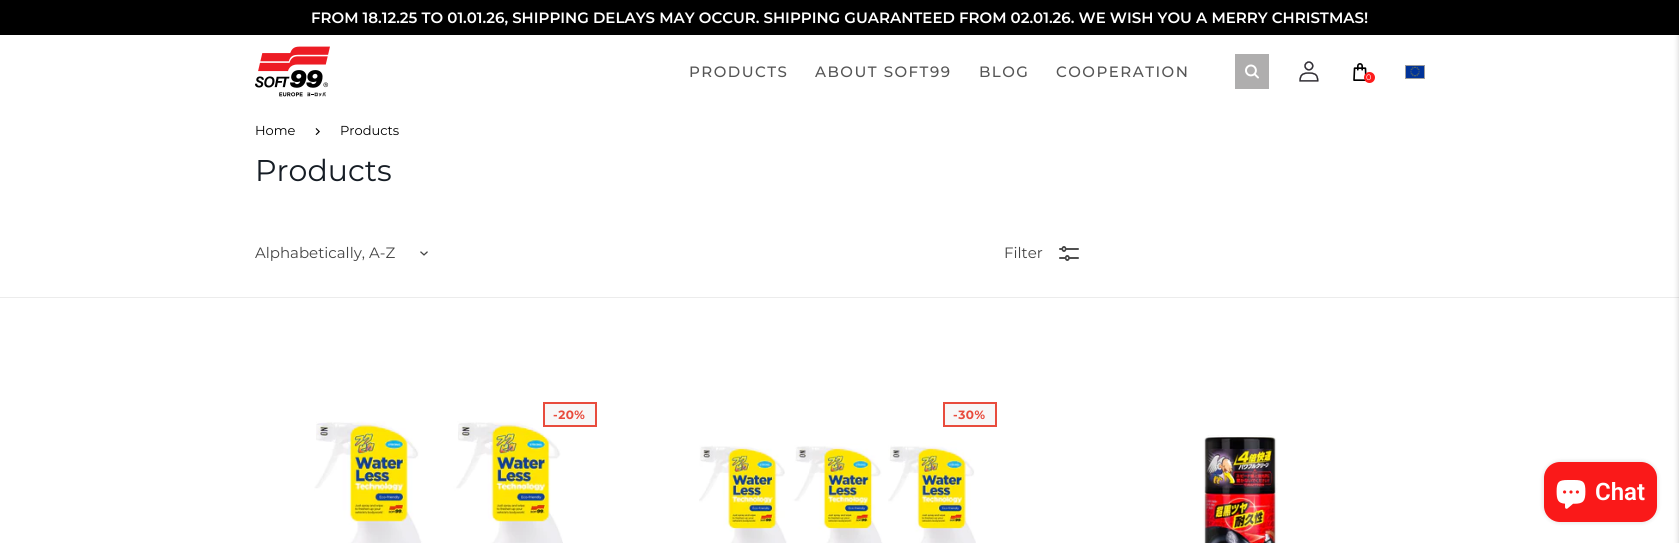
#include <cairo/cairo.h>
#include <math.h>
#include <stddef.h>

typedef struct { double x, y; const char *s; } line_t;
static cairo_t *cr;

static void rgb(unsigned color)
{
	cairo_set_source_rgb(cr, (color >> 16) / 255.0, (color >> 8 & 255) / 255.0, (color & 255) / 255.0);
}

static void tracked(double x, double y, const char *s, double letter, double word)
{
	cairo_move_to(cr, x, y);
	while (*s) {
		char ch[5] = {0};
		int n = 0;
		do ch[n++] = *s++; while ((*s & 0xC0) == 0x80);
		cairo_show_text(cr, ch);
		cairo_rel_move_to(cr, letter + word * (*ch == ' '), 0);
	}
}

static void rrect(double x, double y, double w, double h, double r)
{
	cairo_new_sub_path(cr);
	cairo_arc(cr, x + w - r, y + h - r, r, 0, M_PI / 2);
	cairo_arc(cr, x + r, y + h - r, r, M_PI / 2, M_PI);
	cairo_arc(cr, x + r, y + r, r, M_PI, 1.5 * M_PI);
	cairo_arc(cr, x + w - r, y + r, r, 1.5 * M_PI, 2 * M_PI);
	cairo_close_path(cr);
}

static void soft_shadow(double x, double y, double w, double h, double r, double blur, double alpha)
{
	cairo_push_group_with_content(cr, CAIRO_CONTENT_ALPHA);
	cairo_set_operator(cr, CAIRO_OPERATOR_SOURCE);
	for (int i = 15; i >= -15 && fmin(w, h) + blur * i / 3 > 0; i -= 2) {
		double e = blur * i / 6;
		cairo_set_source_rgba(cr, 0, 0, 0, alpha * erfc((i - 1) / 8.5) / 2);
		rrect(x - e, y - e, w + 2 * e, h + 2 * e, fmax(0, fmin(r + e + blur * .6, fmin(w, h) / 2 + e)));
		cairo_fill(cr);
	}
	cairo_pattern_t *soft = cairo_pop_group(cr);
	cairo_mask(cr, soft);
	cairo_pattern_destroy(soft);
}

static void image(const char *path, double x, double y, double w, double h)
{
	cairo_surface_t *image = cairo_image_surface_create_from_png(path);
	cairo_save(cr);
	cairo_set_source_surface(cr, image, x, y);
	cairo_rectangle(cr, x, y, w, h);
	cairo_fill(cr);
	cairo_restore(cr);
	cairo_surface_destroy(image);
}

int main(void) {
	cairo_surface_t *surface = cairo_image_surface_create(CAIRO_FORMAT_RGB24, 1679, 543);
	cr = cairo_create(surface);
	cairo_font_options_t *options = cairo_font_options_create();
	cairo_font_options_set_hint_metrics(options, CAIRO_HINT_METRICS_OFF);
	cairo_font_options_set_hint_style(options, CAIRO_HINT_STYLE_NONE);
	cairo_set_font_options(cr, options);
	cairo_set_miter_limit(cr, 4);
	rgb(0xffffff);
	cairo_paint(cr);
	rgb(0x000000);
	cairo_rectangle(cr, 0, 0, 1679, 35);
	cairo_fill(cr);
	image("img/1.png", 255, 46, 75, 51);
	rgb(0xafaeae);
	cairo_rectangle(cr, 1235, 54, 34, 35);
	cairo_fill(cr);
	image("img/2.png", 1245, 64, 14, 15);
	image("img/3.png", 1299, 61, 20, 21);
	image("img/4.png", 1353, 63, 14, 18);
	rgb(0xfe1b1b);
	cairo_arc(cr, 1369.5, 77.5, 5.5, 0, 2 * M_PI);
	cairo_fill(cr);
	cairo_rectangle(cr, 1405.5, 65.5, 19, 13);
	rgb(0x9e9e9e);
	cairo_set_line_width(cr, 1);
	cairo_stroke(cr);
	image("img/5.png", 1406, 66, 18, 12);
	rgb(0xececec);
	cairo_rectangle(cr, 0, 297, 1679, 1);
	cairo_fill(cr);
	rgb(0x000000);
	soft_shadow(1679, 2, 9, 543, 0, 3, 0.2);
	image("img/6.png", 315, 128, 5, 7);
	image("img/7.png", 420, 251, 8, 5);
	image("img/8.png", 1059, 246, 20, 15);
	image("img/9.png", 314, 421, 249, 122);
	rgb(0xf7f7f7);
	cairo_rectangle(cr, 544, 403, 52, 23);
	cairo_fill_preserve(cr);
	rgb(0xe84c3d);
	cairo_set_line_width(cr, 2);
	cairo_stroke(cr);
	rgb(0xf7f7f7);
	cairo_rectangle(cr, 944, 403, 52, 23);
	cairo_fill_preserve(cr);
	rgb(0xe84c3d);
	cairo_stroke(cr);
	image("img/10.png", 699, 443, 277, 100);
	image("img/11.png", 1203, 435, 75, 108);
	rgb(0x000000);
	soft_shadow(1544, 462, 113, 60, 16, 2.5, 0.15);
	rgb(0xfa1919);
	rrect(1544, 462, 113, 60, 16);
	cairo_fill(cr);
	image("img/12.png", 1556, 480, 30, 29);
	cairo_select_font_face(cr, "Montserrat SemiBold", CAIRO_FONT_SLANT_NORMAL, CAIRO_FONT_WEIGHT_NORMAL);
	cairo_set_font_size(cr, 15);
	rgb(0xffffff);
	cairo_move_to(cr, 311, 23);
	cairo_show_text(cr, "FROM 18.12.25 TO 01.01.26, SHIPPING DELAYS MAY OCCUR. SHIPPING GUARANTEED FROM 02.01.26. WE WISH YOU A MERRY CHRISTMAS!");
	cairo_select_font_face(cr, "Montserrat Medium", CAIRO_FONT_SLANT_NORMAL, CAIRO_FONT_WEIGHT_NORMAL);
	rgb(0x555555);
	{
		static const line_t items[] = {
			{689, 77, "PRODUCTS"},
			{815, 77, "ABOUT SOFT99"},
			{979, 77, "BLOG"},
			{1056, 77, "COOPERATION"},
		};
		for (size_t i = 0; i < sizeof items / sizeof *items; i++) {
			tracked(items[i].x, items[i].y, items[i].s, 1.5, 0);
		}
	}
	cairo_select_font_face(cr, "Montserrat", CAIRO_FONT_SLANT_NORMAL, CAIRO_FONT_WEIGHT_NORMAL);
	cairo_set_font_size(cr, 8);
	rgb(0xffffff);
	cairo_move_to(cr, 1366, 80);
	cairo_show_text(cr, "0");
	cairo_set_font_size(cr, 13);
	rgb(0x000000);
	cairo_move_to(cr, 255, 135);
	cairo_show_text(cr, "Home");
	cairo_move_to(cr, 340, 135);
	cairo_show_text(cr, "Products");
	cairo_set_font_size(cr, 30);
	rgb(0x161d25);
	cairo_move_to(cr, 255, 181);
	cairo_show_text(cr, "Products");
	cairo_set_font_size(cr, 15);
	rgb(0x444444);
	cairo_move_to(cr, 255, 258);
	cairo_show_text(cr, "Alphabetically, A-Z");
	cairo_move_to(cr, 1004, 258);
	cairo_show_text(cr, "Filter");
	cairo_select_font_face(cr, "Montserrat", CAIRO_FONT_SLANT_NORMAL, CAIRO_FONT_WEIGHT_BOLD);
	cairo_set_font_size(cr, 12);
	rgb(0xe84c3d);
	tracked(553, 419, "-20%", 0.5, 0);
	tracked(953, 419, "-30%", 0.5, 0);
	cairo_select_font_face(cr, "Roboto SemiBold", CAIRO_FONT_SLANT_NORMAL, CAIRO_FONT_WEIGHT_NORMAL);
	cairo_set_font_size(cr, 24);
	rgb(0xffffff);
	cairo_move_to(cr, 1595, 500);
	cairo_show_text(cr, "Chat");
	cairo_surface_write_to_png(surface, "page.png");
	cairo_font_options_destroy(options);
	cairo_destroy(cr);
	cairo_surface_destroy(surface);
	return 0;
}
